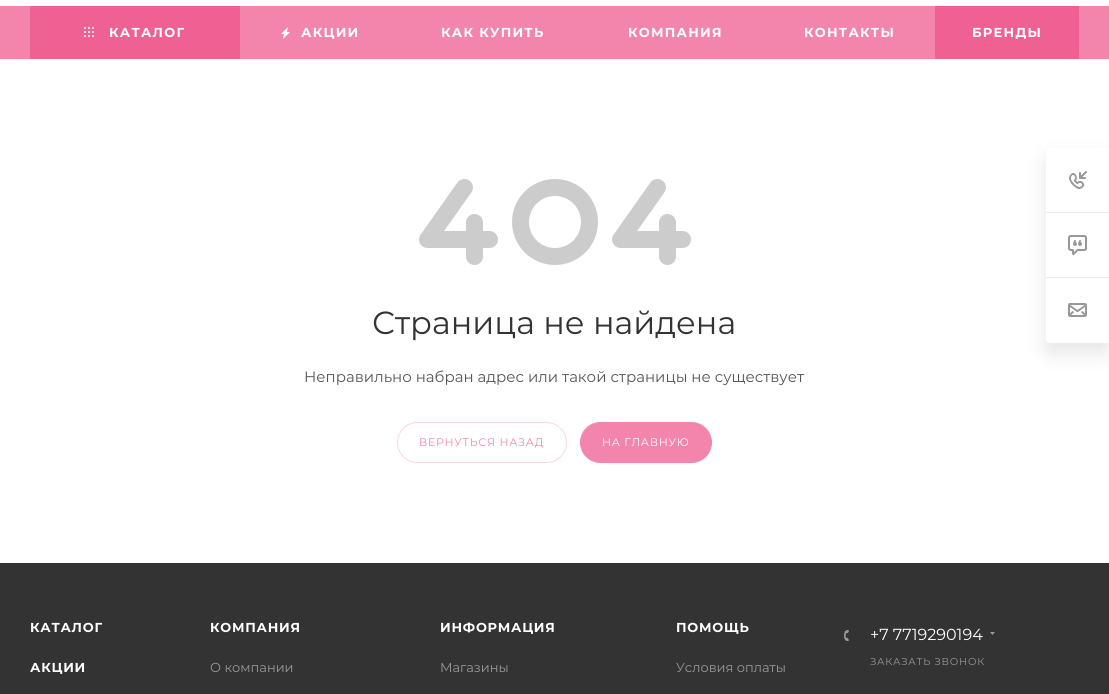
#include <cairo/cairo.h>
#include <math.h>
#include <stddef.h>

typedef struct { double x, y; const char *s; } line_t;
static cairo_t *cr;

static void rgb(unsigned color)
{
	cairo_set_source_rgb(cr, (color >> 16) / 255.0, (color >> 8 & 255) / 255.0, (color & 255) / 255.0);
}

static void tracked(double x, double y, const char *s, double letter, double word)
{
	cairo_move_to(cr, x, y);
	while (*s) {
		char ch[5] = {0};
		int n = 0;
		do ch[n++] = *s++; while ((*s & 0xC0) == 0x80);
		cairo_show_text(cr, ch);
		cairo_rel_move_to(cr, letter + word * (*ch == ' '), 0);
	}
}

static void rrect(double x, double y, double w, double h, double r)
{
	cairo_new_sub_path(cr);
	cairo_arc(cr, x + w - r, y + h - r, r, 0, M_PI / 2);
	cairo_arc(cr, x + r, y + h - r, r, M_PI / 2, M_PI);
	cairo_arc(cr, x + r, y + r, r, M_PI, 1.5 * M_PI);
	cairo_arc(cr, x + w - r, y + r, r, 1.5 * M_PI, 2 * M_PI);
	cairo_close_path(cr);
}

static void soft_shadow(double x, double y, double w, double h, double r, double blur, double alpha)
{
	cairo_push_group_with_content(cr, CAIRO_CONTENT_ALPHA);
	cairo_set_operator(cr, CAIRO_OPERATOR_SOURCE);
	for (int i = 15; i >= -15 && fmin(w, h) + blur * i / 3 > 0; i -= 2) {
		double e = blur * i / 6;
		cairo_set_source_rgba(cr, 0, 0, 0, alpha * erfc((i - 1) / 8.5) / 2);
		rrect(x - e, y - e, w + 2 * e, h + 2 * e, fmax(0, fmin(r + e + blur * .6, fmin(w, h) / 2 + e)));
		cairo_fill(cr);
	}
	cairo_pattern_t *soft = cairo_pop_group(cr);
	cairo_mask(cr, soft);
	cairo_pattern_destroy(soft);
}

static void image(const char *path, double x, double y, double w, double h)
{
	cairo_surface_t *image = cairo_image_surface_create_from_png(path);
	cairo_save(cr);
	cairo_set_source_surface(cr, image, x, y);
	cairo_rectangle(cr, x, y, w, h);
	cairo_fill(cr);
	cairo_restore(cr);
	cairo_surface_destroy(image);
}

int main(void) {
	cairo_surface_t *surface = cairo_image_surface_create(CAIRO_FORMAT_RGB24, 1109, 694);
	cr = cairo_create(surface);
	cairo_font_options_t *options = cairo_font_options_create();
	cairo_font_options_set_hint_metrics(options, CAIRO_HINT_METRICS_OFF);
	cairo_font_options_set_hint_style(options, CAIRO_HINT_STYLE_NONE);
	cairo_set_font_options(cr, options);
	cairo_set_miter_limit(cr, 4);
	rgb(0xffffff);
	cairo_paint(cr);
	rgb(0xf385ac);
	cairo_rectangle(cr, 0, 6, 1109, 53);
	cairo_fill(cr);
	rgb(0xef6093);
	cairo_rectangle(cr, 30, 6, 210, 53);
	cairo_fill(cr);
	image("img/1.png", 84, 27, 10, 10);
	image("img/2.png", 281, 27, 9, 12);
	cairo_rectangle(cr, 935, 6, 144, 53);
	cairo_fill(cr);
	image("img/3.png", 419, 179, 272, 86);
	rrect(397.5, 422.5, 169, 40, 20);
	rgb(0xfbd5e2);
	cairo_set_line_width(cr, 1);
	cairo_stroke(cr);
	rgb(0xf385ac);
	rrect(580.5, 422.5, 131, 40, 20);
	cairo_fill_preserve(cr);
	cairo_stroke(cr);
	rgb(0x000000);
	soft_shadow(1046, 158, 63, 195, 4, 10, 0.1);
	rgb(0xffffff);
	cairo_new_path(cr);
	cairo_move_to(cr, 1050, 148);
	cairo_line_to(cr, 1109, 148);
	cairo_line_to(cr, 1109, 343);
	cairo_line_to(cr, 1050, 343);
	cairo_curve_to(cr, 1048, 343, 1046, 341, 1046, 339);
	cairo_line_to(cr, 1046, 152);
	cairo_curve_to(cr, 1046, 150, 1048, 148, 1050, 148);
	cairo_close_path(cr);
	cairo_fill(cr);
	rgb(0xececec);
	cairo_rectangle(cr, 1046, 212, 63, 1);
	cairo_fill(cr);
	image("img/4.png", 1069, 171, 18, 18);
	cairo_rectangle(cr, 1046, 277, 63, 1);
	cairo_fill(cr);
	image("img/5.png", 1068, 235, 19, 20);
	image("img/6.png", 1068, 303, 19, 14);
	rgb(0x333333);
	cairo_rectangle(cr, 0, 563, 1109, 131);
	cairo_fill(cr);
	image("img/7.png", 844, 630, 5, 11);
	image("img/8.png", 990, 632, 5, 3);
	cairo_select_font_face(cr, "Montserrat", CAIRO_FONT_SLANT_NORMAL, CAIRO_FONT_WEIGHT_BOLD);
	cairo_set_font_size(cr, 13);
	rgb(0xffffff);
	{
		static const line_t items[] = {
			{109, 37, "КАТАЛОГ"},
			{301, 37, "АКЦИИ"},
			{441, 37, "КАК КУПИТЬ"},
			{628, 37, "КОМПАНИЯ"},
			{804, 37, "КОНТАКТЫ"},
			{972, 37, "БРЕНДЫ"},
		};
		for (size_t i = 0; i < sizeof items / sizeof *items; i++) {
			tracked(items[i].x, items[i].y, items[i].s, 1.25, 0);
		}
	}
	cairo_select_font_face(cr, "Montserrat", CAIRO_FONT_SLANT_NORMAL, CAIRO_FONT_WEIGHT_NORMAL);
	cairo_set_font_size(cr, 32);
	rgb(0x333333);
	cairo_move_to(cr, 372, 334);
	cairo_show_text(cr, "Страница не найдена");
	cairo_set_font_size(cr, 15);
	rgb(0x555555);
	cairo_move_to(cr, 304, 382);
	cairo_show_text(cr, "Неправильно набран адрес или такой страницы не существует");
	cairo_set_font_size(cr, 11);
	rgb(0xf385ac);
	tracked(419, 446, "ВЕРНУТЬСЯ НАЗАД", 0.75, 0);
	rgb(0xffffff);
	tracked(602, 446, "НА ГЛАВНУЮ", 0.75, 0);
	cairo_select_font_face(cr, "Montserrat", CAIRO_FONT_SLANT_NORMAL, CAIRO_FONT_WEIGHT_BOLD);
	cairo_set_font_size(cr, 13);
	{
		static const line_t items[] = {
			{30, 632, "КАТАЛОГ"},
			{30, 672, "АКЦИИ"},
			{210, 632, "КОМПАНИЯ"},
		};
		for (size_t i = 0; i < sizeof items / sizeof *items; i++) {
			tracked(items[i].x, items[i].y, items[i].s, 0.75, 0);
		}
	}
	cairo_select_font_face(cr, "Montserrat", CAIRO_FONT_SLANT_NORMAL, CAIRO_FONT_WEIGHT_NORMAL);
	rgb(0x999999);
	cairo_move_to(cr, 210, 672);
	cairo_show_text(cr, "О компании");
	cairo_select_font_face(cr, "Montserrat", CAIRO_FONT_SLANT_NORMAL, CAIRO_FONT_WEIGHT_BOLD);
	rgb(0xffffff);
	tracked(440, 632, "ИНФОРМАЦИЯ", 0.75, 0);
	cairo_select_font_face(cr, "Montserrat", CAIRO_FONT_SLANT_NORMAL, CAIRO_FONT_WEIGHT_NORMAL);
	rgb(0x999999);
	cairo_move_to(cr, 440, 672);
	cairo_show_text(cr, "Магазины");
	cairo_select_font_face(cr, "Montserrat", CAIRO_FONT_SLANT_NORMAL, CAIRO_FONT_WEIGHT_BOLD);
	rgb(0xffffff);
	tracked(676, 632, "ПОМОЩЬ", 0.75, 0);
	cairo_select_font_face(cr, "Montserrat", CAIRO_FONT_SLANT_NORMAL, CAIRO_FONT_WEIGHT_NORMAL);
	rgb(0x999999);
	cairo_move_to(cr, 676, 672);
	cairo_show_text(cr, "Условия оплаты");
	cairo_set_font_size(cr, 16);
	rgb(0xffffff);
	cairo_move_to(cr, 870, 640);
	cairo_show_text(cr, "+7 7719290194");
	cairo_set_font_size(cr, 10);
	rgb(0x999999);
	tracked(870, 665, "ЗАКАЗАТЬ ЗВОНОК", 0.75, 0);
	cairo_surface_write_to_png(surface, "page.png");
	cairo_font_options_destroy(options);
	cairo_destroy(cr);
	cairo_surface_destroy(surface);
	return 0;
}
